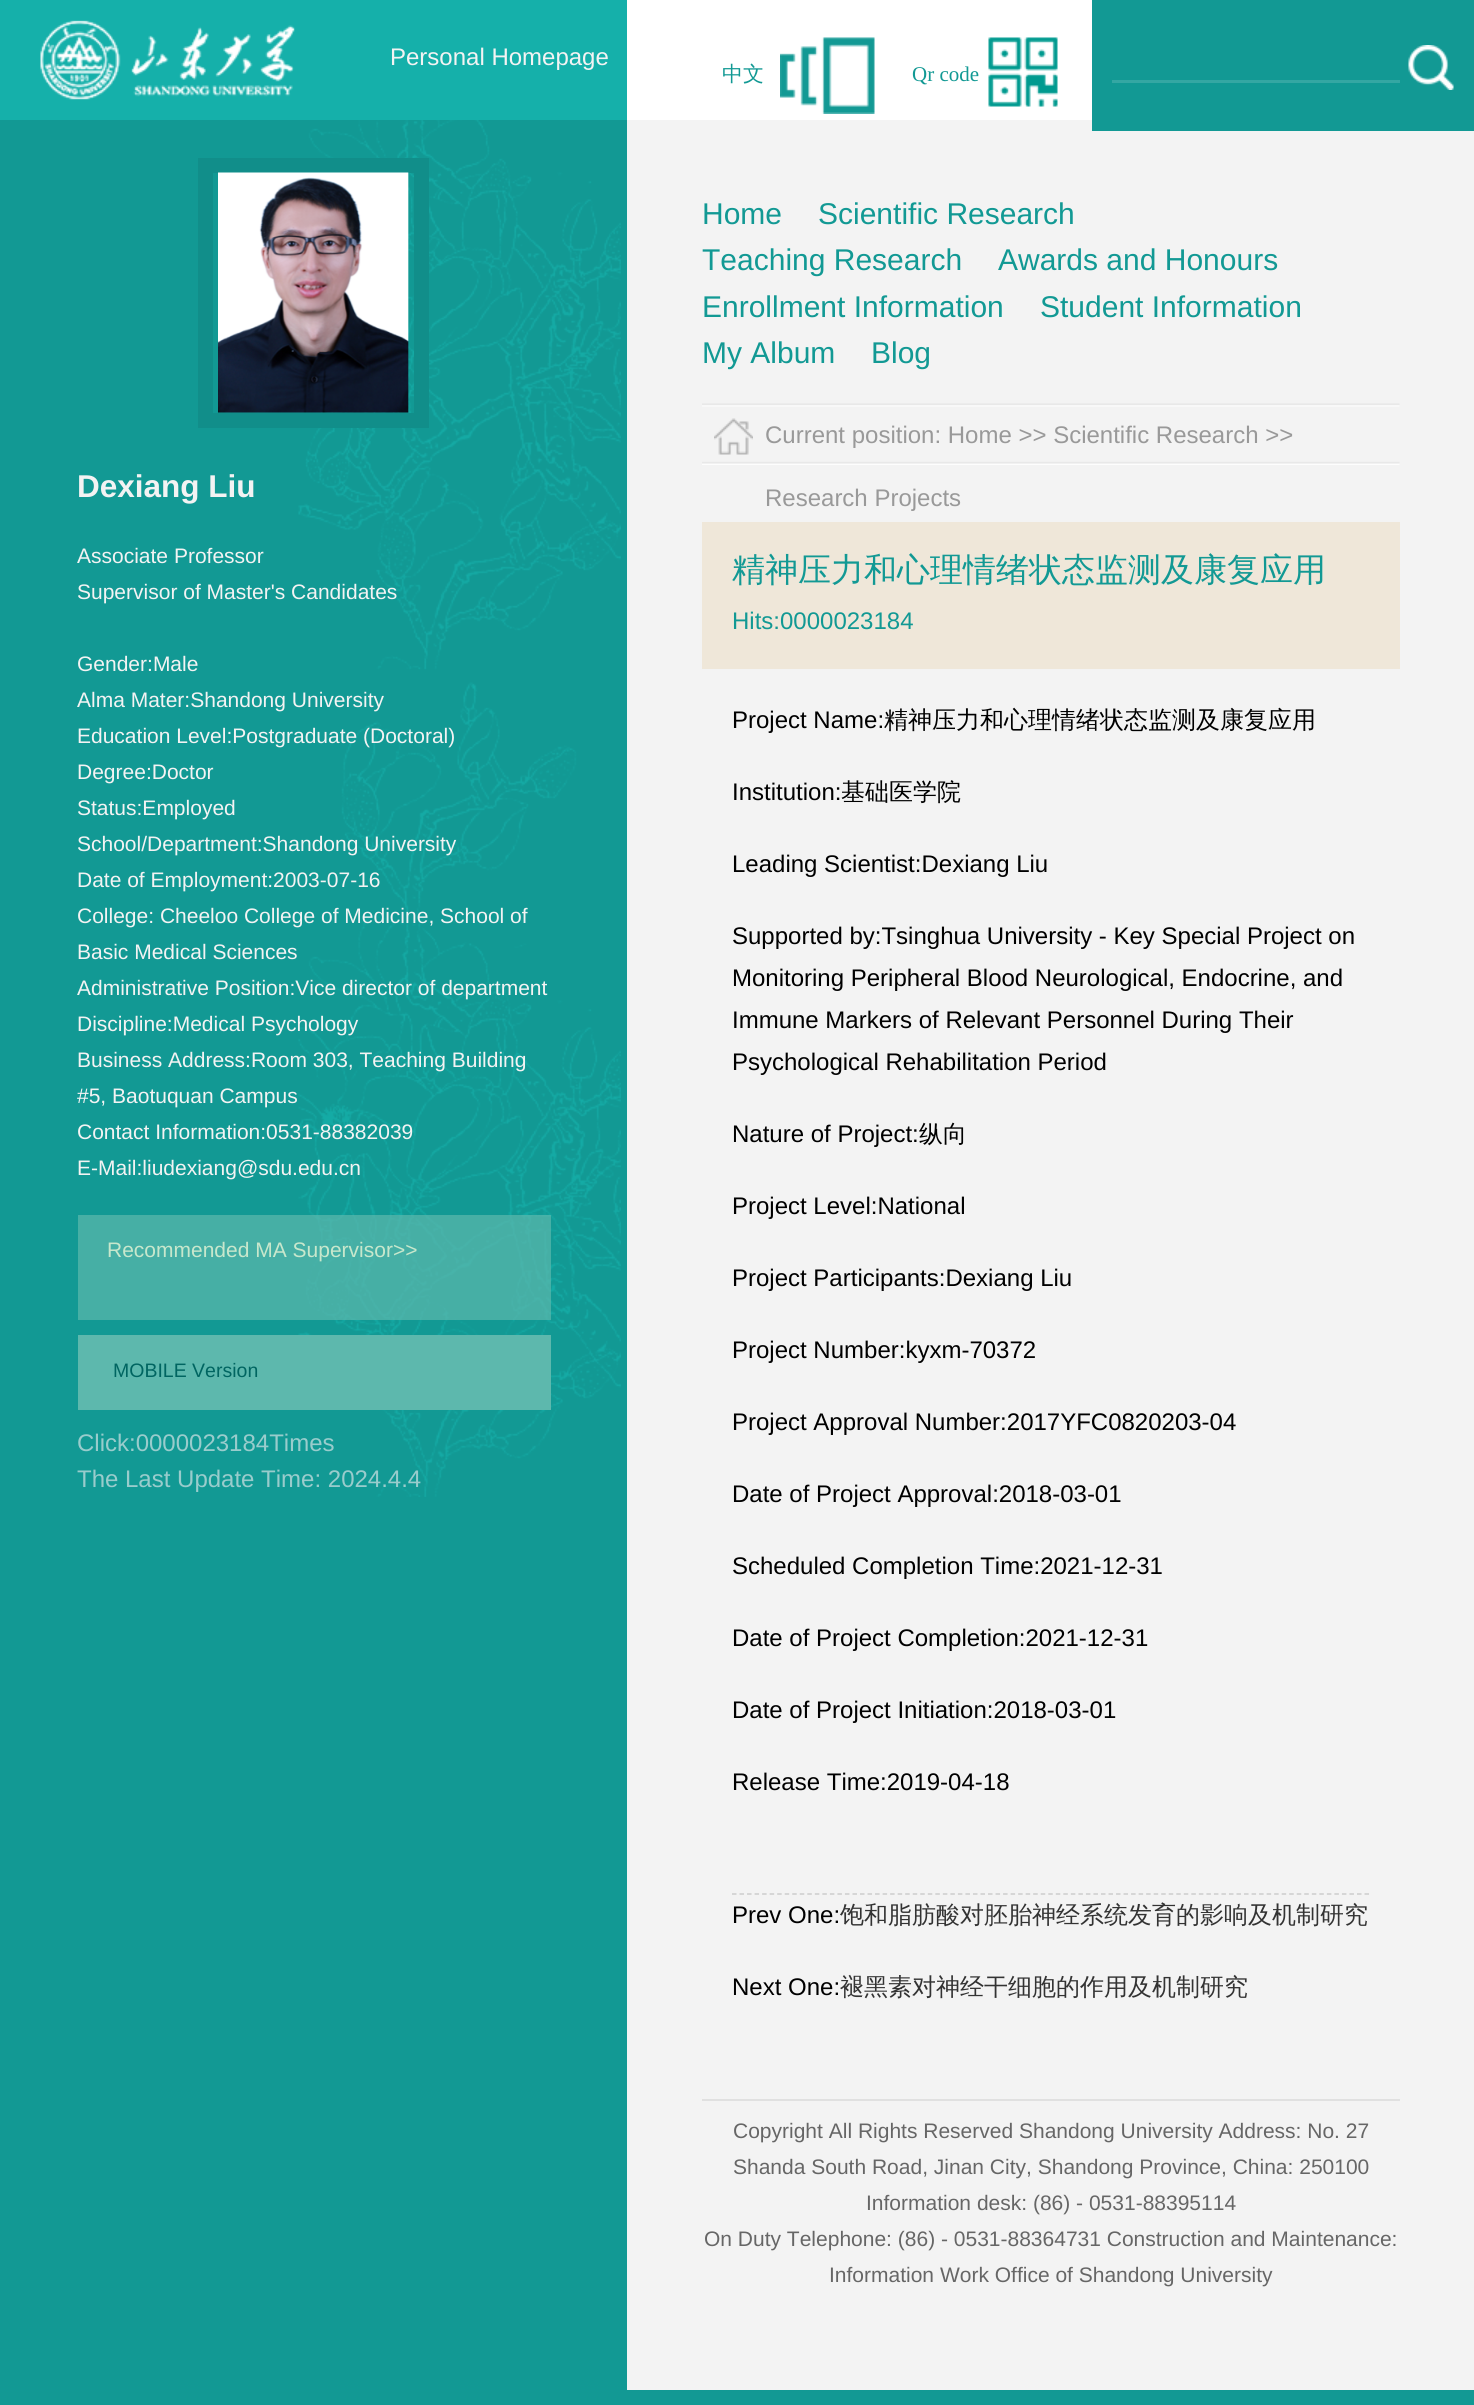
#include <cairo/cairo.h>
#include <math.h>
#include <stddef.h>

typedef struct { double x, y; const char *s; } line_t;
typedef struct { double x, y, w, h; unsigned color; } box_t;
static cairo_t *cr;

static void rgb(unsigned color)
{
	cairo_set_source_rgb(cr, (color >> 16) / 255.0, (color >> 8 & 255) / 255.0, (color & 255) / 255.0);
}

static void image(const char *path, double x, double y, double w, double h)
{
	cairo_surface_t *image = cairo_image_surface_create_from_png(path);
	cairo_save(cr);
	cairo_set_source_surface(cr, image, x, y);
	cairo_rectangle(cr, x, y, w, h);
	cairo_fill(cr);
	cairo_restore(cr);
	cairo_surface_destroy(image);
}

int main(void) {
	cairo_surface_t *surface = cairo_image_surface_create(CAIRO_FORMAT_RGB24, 1474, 2405);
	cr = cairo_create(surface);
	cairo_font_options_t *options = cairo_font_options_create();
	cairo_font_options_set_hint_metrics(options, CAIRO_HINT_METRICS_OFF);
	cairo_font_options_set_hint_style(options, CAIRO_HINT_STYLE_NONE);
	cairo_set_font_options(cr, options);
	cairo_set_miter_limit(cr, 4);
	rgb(0x129994);
	cairo_paint(cr);
	rgb(0xffffff);
	cairo_rectangle(cr, 627, 0, 465, 120);
	cairo_fill(cr);
	rgb(0x15b0aa);
	cairo_rectangle(cr, 0, 0, 627, 120);
	cairo_fill(cr);
	image("img/1.png", 40, 20, 255, 80);
	{
		static const box_t items[] = {
			{627, 120, 847, 2270, 0xf3f3f3},
			{1092, 120, 382, 11, 0x129994},
			{1111, 80, 289, 3, 0x34a7a3},
		};
		for (size_t i = 0; i < sizeof items / sizeof *items; i++) {
			rgb(items[i].color);
			cairo_rectangle(cr, items[i].x, items[i].y, items[i].w, items[i].h);
			cairo_fill(cr);
		}
	}
	cairo_rectangle(cr, 1111, 46, 297, 40);
	rgb(0x129994);
	cairo_stroke(cr);
	image("img/2.png", 1408, 45, 46, 45);
	image("img/3.png", 780, 37, 95, 77);
	image("img/4.png", 988, 37, 70, 70);
	image("img/5.png", 298, 120, 323, 1377);
	cairo_rectangle(cr, 205.5, 165.5, 216, 255);
	rgb(0x118e8a);
	cairo_set_line_width(cr, 15);
	cairo_stroke(cr);
	image("img/6.png", 218, 172, 191, 241);
	cairo_set_source_rgba(cr, 0.365, 0.722, 0.678, 0.7);
	cairo_rectangle(cr, 78, 1215, 473, 105);
	cairo_fill(cr);
	rgb(0x5db8ad);
	cairo_rectangle(cr, 78, 1335, 473, 75);
	cairo_fill(cr);
	image("img/7.png", 702, 403, 698, 62);
	image("img/8.png", 714, 418, 39, 37);
	rgb(0xefe7d9);
	cairo_rectangle(cr, 702, 522, 698, 147);
	cairo_fill(cr);
	cairo_new_path(cr);
	cairo_move_to(cr, 732, 1894);
	cairo_line_to(cr, 1369.5, 1894);
	rgb(0xcccccc);
	cairo_set_line_width(cr, 1.5);
	cairo_set_dash(cr, (double[]){4.5, 3.03}, 2, 0);
	cairo_stroke(cr);
	rgb(0xe0e0e0);
	cairo_rectangle(cr, 702, 2099, 698, 2);
	cairo_fill(cr);
	cairo_select_font_face(cr, "Liberation Sans", CAIRO_FONT_SLANT_NORMAL, CAIRO_FONT_WEIGHT_NORMAL);
	cairo_set_font_size(cr, 24);
	rgb(0xf3f3f3);
	cairo_move_to(cr, 390, 65);
	cairo_show_text(cr, "Personal Homepage");
	cairo_select_font_face(cr, "WenQuanYi Zen Hei Medium", CAIRO_FONT_SLANT_NORMAL, CAIRO_FONT_WEIGHT_NORMAL);
	cairo_set_font_size(cr, 21);
	rgb(0x129994);
	cairo_move_to(cr, 722, 81);
	cairo_show_text(cr, "中文");
	cairo_select_font_face(cr, "Liberation Serif", CAIRO_FONT_SLANT_NORMAL, CAIRO_FONT_WEIGHT_NORMAL);
	cairo_move_to(cr, 912, 81);
	cairo_show_text(cr, "Qr code");
	cairo_select_font_face(cr, "Liberation Sans", CAIRO_FONT_SLANT_NORMAL, CAIRO_FONT_WEIGHT_BOLD);
	cairo_set_font_size(cr, 31.5);
	rgb(0xf3f3f3);
	cairo_move_to(cr, 77, 497);
	cairo_show_text(cr, "Dexiang Liu");
	cairo_select_font_face(cr, "Liberation Sans", CAIRO_FONT_SLANT_NORMAL, CAIRO_FONT_WEIGHT_NORMAL);
	cairo_set_font_size(cr, 21);
	{
		static const line_t items[] = {
			{77, 563, "Associate Professor"},
			{77, 599, "Supervisor of Master's Candidates"},
			{77, 671, "Gender:Male"},
			{77, 707, "Alma Mater:Shandong University"},
			{77, 743, "Education Level:Postgraduate (Doctoral)"},
			{77, 779, "Degree:Doctor"},
			{77, 815, "Status:Employed"},
			{77, 851, "School/Department:Shandong University"},
			{77, 887, "Date of Employment:2003-07-16"},
			{77, 923, "College: Cheeloo College of Medicine, School of"},
			{77, 959, "Basic Medical Sciences"},
			{77, 995, "Administrative Position:Vice director of department"},
			{77, 1031, "Discipline:Medical Psychology"},
			{77, 1067, "Business Address:Room 303, Teaching Building"},
			{77, 1103, "#5, Baotuquan Campus"},
			{77, 1139, "Contact Information:0531-88382039"},
			{77, 1175, "E-Mail:liudexiang@sdu.edu.cn"},
		};
		for (size_t i = 0; i < sizeof items / sizeof *items; i++) {
			cairo_move_to(cr, items[i].x, items[i].y);
			cairo_show_text(cr, items[i].s);
		}
	}
	rgb(0xc8e7cc);
	cairo_move_to(cr, 107, 1257);
	cairo_show_text(cr, "Recommended MA Supervisor>>");
	cairo_set_font_size(cr, 19.5);
	rgb(0x006561);
	cairo_move_to(cr, 113, 1377);
	cairo_show_text(cr, "MOBILE Version");
	cairo_set_font_size(cr, 24);
	rgb(0x99cccc);
	cairo_move_to(cr, 77, 1451);
	cairo_show_text(cr, "Click:0000023184Times");
	cairo_move_to(cr, 77, 1487);
	cairo_show_text(cr, "The Last Update Time: 2024.4.4");
	cairo_set_font_size(cr, 30);
	rgb(0x129994);
	{
		static const line_t items[] = {
			{702, 224, "Home"},
			{818, 224, "Scientific Research"},
			{702, 270, "Teaching Research"},
			{998, 270, "Awards and Honours"},
			{702, 317, "Enrollment Information"},
			{1040, 317, "Student Information"},
			{702, 363, "My Album"},
			{871, 363, "Blog"},
		};
		for (size_t i = 0; i < sizeof items / sizeof *items; i++) {
			cairo_move_to(cr, items[i].x, items[i].y);
			cairo_show_text(cr, items[i].s);
		}
	}
	cairo_set_font_size(cr, 24);
	rgb(0x999999);
	cairo_move_to(cr, 765, 443);
	cairo_show_text(cr, "Current position: Home >> Scientific Research >>");
	cairo_move_to(cr, 765, 506);
	cairo_show_text(cr, "Research Projects");
	cairo_select_font_face(cr, "WenQuanYi Zen Hei Medium", CAIRO_FONT_SLANT_NORMAL, CAIRO_FONT_WEIGHT_NORMAL);
	cairo_set_font_size(cr, 33);
	rgb(0x129994);
	cairo_move_to(cr, 732, 581);
	cairo_show_text(cr, "精神压力和心理情绪状态监测及康复应用");
	cairo_select_font_face(cr, "Liberation Sans", CAIRO_FONT_SLANT_NORMAL, CAIRO_FONT_WEIGHT_NORMAL);
	cairo_set_font_size(cr, 24);
	cairo_move_to(cr, 732, 629);
	cairo_show_text(cr, "Hits:0000023184");
	rgb(0x000000);
	cairo_move_to(cr, 732, 728);
	cairo_show_text(cr, "Project Name:");
	cairo_select_font_face(cr, "WenQuanYi Zen Hei Medium", CAIRO_FONT_SLANT_NORMAL, CAIRO_FONT_WEIGHT_NORMAL);
	cairo_move_to(cr, 884, 728);
	cairo_show_text(cr, "精神压力和心理情绪状态监测及康复应用");
	cairo_select_font_face(cr, "Liberation Sans", CAIRO_FONT_SLANT_NORMAL, CAIRO_FONT_WEIGHT_NORMAL);
	cairo_move_to(cr, 732, 800);
	cairo_show_text(cr, "Institution:");
	cairo_select_font_face(cr, "WenQuanYi Zen Hei Medium", CAIRO_FONT_SLANT_NORMAL, CAIRO_FONT_WEIGHT_NORMAL);
	cairo_move_to(cr, 841, 800);
	cairo_show_text(cr, "基础医学院");
	cairo_select_font_face(cr, "Liberation Sans", CAIRO_FONT_SLANT_NORMAL, CAIRO_FONT_WEIGHT_NORMAL);
	{
		static const line_t items[] = {
			{732, 872, "Leading Scientist:Dexiang Liu"},
			{732, 944, "Supported by:Tsinghua University - Key Special Project on"},
			{732, 986, "Monitoring Peripheral Blood Neurological, Endocrine, and"},
			{732, 1028, "Immune Markers of Relevant Personnel During Their"},
			{732, 1070, "Psychological Rehabilitation Period"},
			{732, 1142, "Nature of Project:"},
		};
		for (size_t i = 0; i < sizeof items / sizeof *items; i++) {
			cairo_move_to(cr, items[i].x, items[i].y);
			cairo_show_text(cr, items[i].s);
		}
	}
	cairo_select_font_face(cr, "WenQuanYi Zen Hei Medium", CAIRO_FONT_SLANT_NORMAL, CAIRO_FONT_WEIGHT_NORMAL);
	cairo_move_to(cr, 919, 1142);
	cairo_show_text(cr, "纵向");
	cairo_select_font_face(cr, "Liberation Sans", CAIRO_FONT_SLANT_NORMAL, CAIRO_FONT_WEIGHT_NORMAL);
	{
		static const line_t items[] = {
			{732, 1214, "Project Level:National"},
			{732, 1286, "Project Participants:Dexiang Liu"},
			{732, 1358, "Project Number:kyxm-70372"},
			{732, 1430, "Project Approval Number:2017YFC0820203-04"},
			{732, 1502, "Date of Project Approval:2018-03-01"},
			{732, 1574, "Scheduled Completion Time:2021-12-31"},
			{732, 1646, "Date of Project Completion:2021-12-31"},
			{732, 1718, "Date of Project Initiation:2018-03-01"},
			{732, 1790, "Release Time:2019-04-18"},
			{732, 1923, "Prev One:"},
		};
		for (size_t i = 0; i < sizeof items / sizeof *items; i++) {
			cairo_move_to(cr, items[i].x, items[i].y);
			cairo_show_text(cr, items[i].s);
		}
	}
	cairo_select_font_face(cr, "WenQuanYi Zen Hei Medium", CAIRO_FONT_SLANT_NORMAL, CAIRO_FONT_WEIGHT_NORMAL);
	rgb(0x333333);
	cairo_move_to(cr, 840, 1923);
	cairo_show_text(cr, "饱和脂肪酸对胚胎神经系统发育的影响及机制研究");
	cairo_select_font_face(cr, "Liberation Sans", CAIRO_FONT_SLANT_NORMAL, CAIRO_FONT_WEIGHT_NORMAL);
	rgb(0x000000);
	cairo_move_to(cr, 732, 1995);
	cairo_show_text(cr, "Next One:");
	cairo_select_font_face(cr, "WenQuanYi Zen Hei Medium", CAIRO_FONT_SLANT_NORMAL, CAIRO_FONT_WEIGHT_NORMAL);
	rgb(0x333333);
	cairo_move_to(cr, 840, 1995);
	cairo_show_text(cr, "褪黑素对神经干细胞的作用及机制研究");
	cairo_select_font_face(cr, "Liberation Sans", CAIRO_FONT_SLANT_NORMAL, CAIRO_FONT_WEIGHT_NORMAL);
	cairo_set_font_size(cr, 21);
	rgb(0x666666);
	{
		static const line_t items[] = {
			{733, 2138, "Copyright All Rights Reserved Shandong University Address: No. 27"},
			{733, 2174, "Shanda South Road, Jinan City, Shandong Province, China: 250100"},
			{866, 2210, "Information desk: (86) - 0531-88395114"},
			{704, 2246, "On Duty Telephone: (86) - 0531-88364731 Construction and Maintenance:"},
			{829, 2282, "Information Work Office of Shandong University"},
		};
		for (size_t i = 0; i < sizeof items / sizeof *items; i++) {
			cairo_move_to(cr, items[i].x, items[i].y);
			cairo_show_text(cr, items[i].s);
		}
	}
	cairo_surface_write_to_png(surface, "page.png");
	cairo_font_options_destroy(options);
	cairo_destroy(cr);
	cairo_surface_destroy(surface);
	return 0;
}
